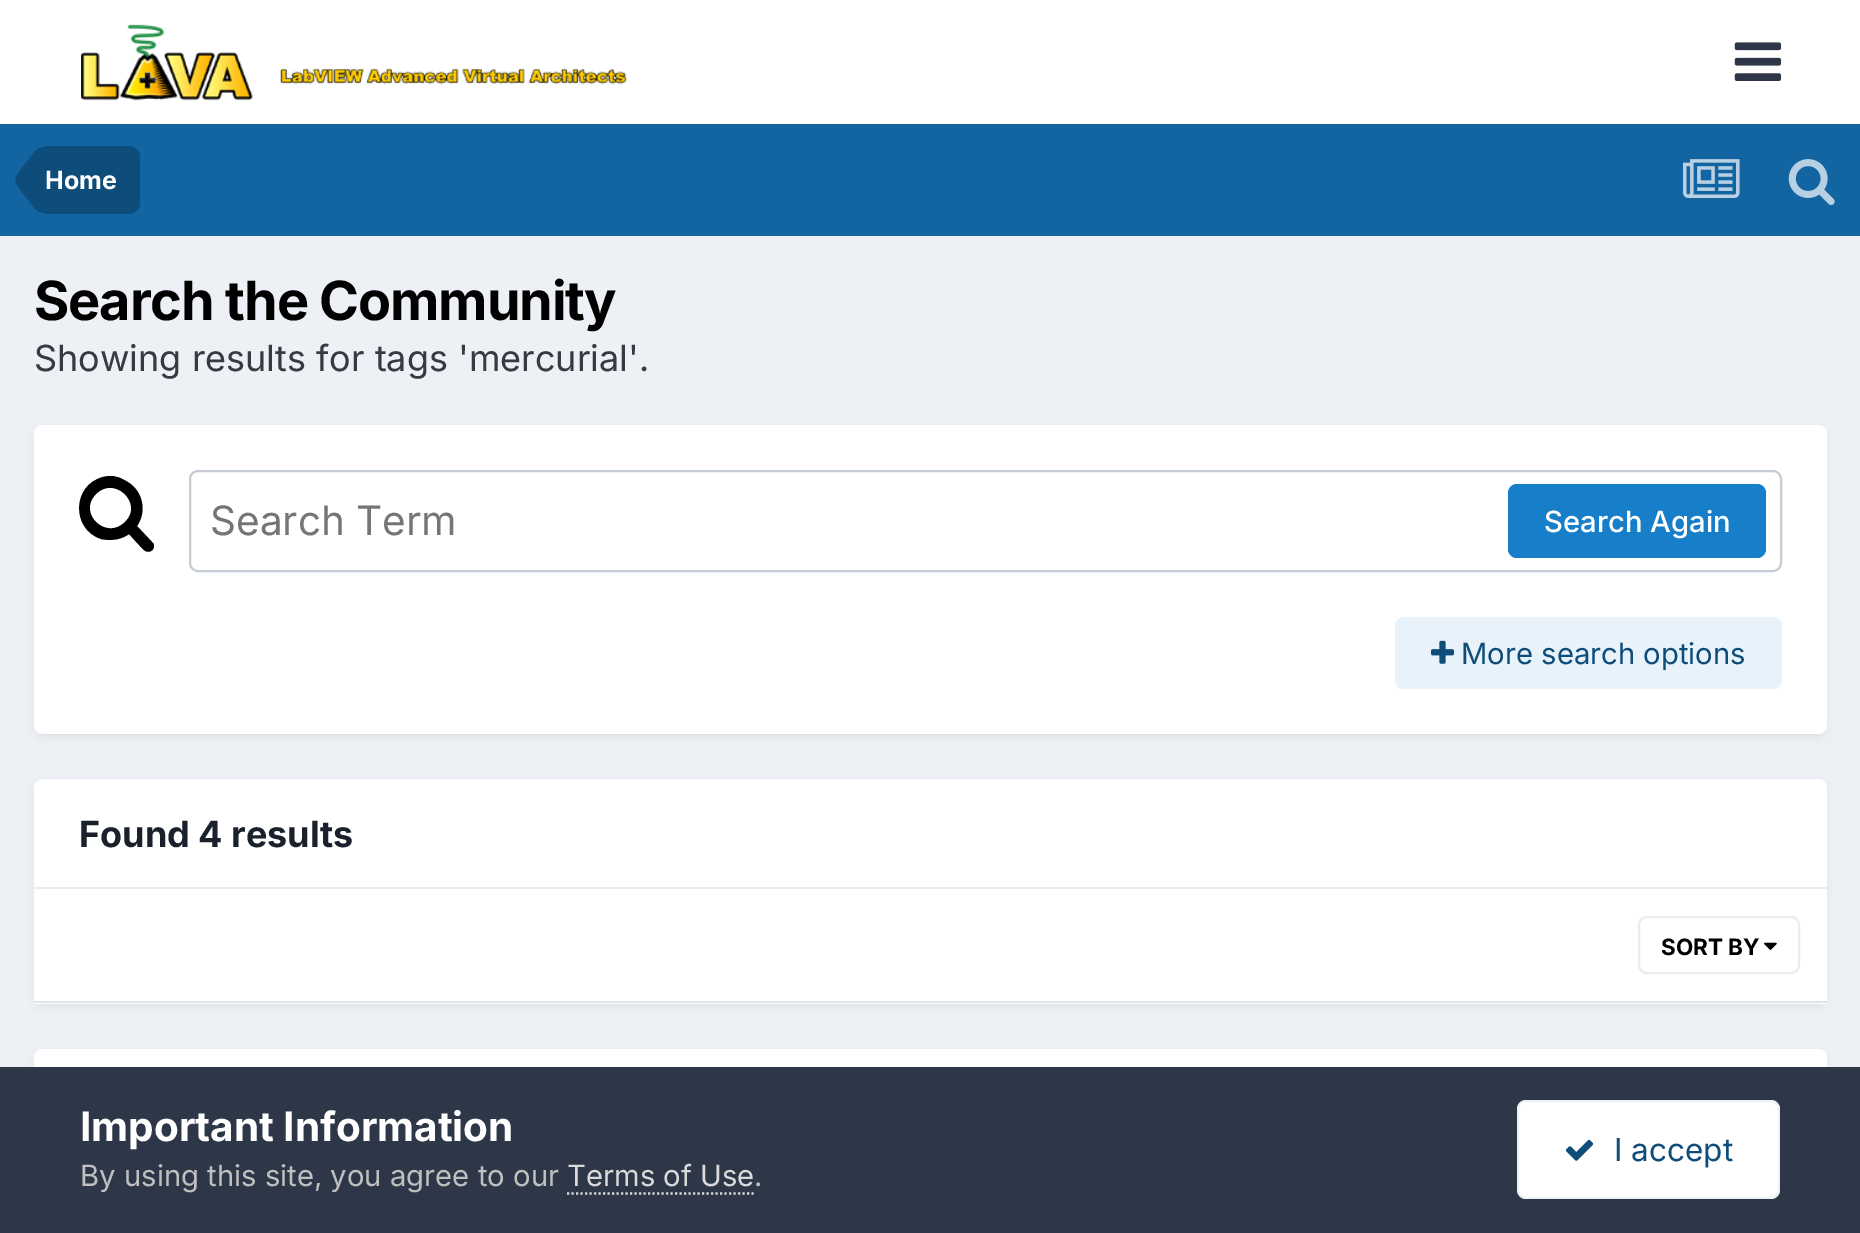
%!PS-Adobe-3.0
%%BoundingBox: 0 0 1860 1233
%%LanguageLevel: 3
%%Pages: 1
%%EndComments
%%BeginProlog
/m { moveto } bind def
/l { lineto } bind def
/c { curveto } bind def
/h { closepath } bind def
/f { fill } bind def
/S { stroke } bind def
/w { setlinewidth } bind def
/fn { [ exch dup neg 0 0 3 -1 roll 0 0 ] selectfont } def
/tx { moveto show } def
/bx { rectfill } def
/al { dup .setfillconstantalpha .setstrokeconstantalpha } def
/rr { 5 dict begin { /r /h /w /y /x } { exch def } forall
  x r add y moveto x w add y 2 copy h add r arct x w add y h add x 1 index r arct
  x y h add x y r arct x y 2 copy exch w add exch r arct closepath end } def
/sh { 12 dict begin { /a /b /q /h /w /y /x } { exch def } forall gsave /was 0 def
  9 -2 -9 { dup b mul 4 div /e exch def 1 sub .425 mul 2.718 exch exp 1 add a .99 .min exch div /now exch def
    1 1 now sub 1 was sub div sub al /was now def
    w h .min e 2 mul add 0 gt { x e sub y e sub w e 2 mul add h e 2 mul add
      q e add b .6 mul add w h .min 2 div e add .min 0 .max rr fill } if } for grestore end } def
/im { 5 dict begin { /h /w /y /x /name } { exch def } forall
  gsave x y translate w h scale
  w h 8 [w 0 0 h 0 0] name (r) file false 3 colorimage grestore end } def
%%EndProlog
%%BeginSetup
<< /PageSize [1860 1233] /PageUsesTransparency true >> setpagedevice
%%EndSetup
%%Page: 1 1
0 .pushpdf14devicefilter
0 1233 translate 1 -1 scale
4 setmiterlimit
0.929 0.941 0.957 setrgbcolor
0 0 1860 1233 bx
1 setgray
0 0 1860 124 bx
(image0.raw) 81 24 546 77 im
(image1.raw) 1734 42 48 39 im
0.071 0.396 0.631 setrgbcolor
0 124 1860 112 bx
0.055 0.298 0.475 setrgbcolor
45 146 m 129 146 l 135 146 140 151 140 157 c 140 203 l 140 209 135 214 129 214 c 45 214 l h f
45 180 m 45 213 l 40 213 35.5 210.5 32 205 c 21.5 191.5 l 16 183.5 l 15.5 182 15.5 181 15.5 180 c h f
45 180 m 15.5 180 l 15.5 179 15.5 178 16 176.5 c 21.5 168.5 l 32 155 l 35.5 149.5 40 147 45 147 c h f
/Inter-Bold 25 fn
1 setgray
(Home) 45 189 tx
(image2.raw) 1683 159 57 39 im
(image3.raw) 1788 159 47 46 im
/Inter-Bold 54 fn
0 setgray
34 320 m -1.1 0 (Search the Community) ashow
/Inter-Regular 36 fn
0.208 0.235 0.255 setrgbcolor
(Showing results for tags 'mercurial'.) 34 371 tx
0.176 0.216 0.282 setrgbcolor
36 432 1789 304 7 4.5 0.1 sh
1 setgray
34 425 1793 309 9 rr f
0 setgray
125 522 m 144 504 115 475 96 494 c 77 513 106 541 125 522 c h 154 546 m 154 548 153 550 151 551 c 146 554 142 548 139 545 c 129 534 l 121 540 110 541 101 539 c 71 529 72 485 103 477 c 110 475 118 476 124 480 c 142 488 148 510 137 526 c 152 542 l 153 543 154 544 154 546 c h f
0.776 0.8 0.835 setrgbcolor
2 w
190 471 1591 100 8 rr S
/Inter-Regular 40.5 fn
0.459 setgray
(Search Term) 210 535 tx
0.09 0.494 0.788 setrgbcolor
1508 484 258 74 9 rr f
/Inter-Medium 29.25 fn
1 setgray
(Search Again) 1544 532 tx
0.91 0.949 0.98 setrgbcolor
1395 617 387 72 9 rr f
(image4.raw) 1431 640 23 24 im
/Inter-Regular 29.25 fn
0.055 0.298 0.475 setrgbcolor
(More search options) 1461 664 tx
0.176 0.216 0.282 setrgbcolor
36 785 1789 221 7 4.5 0.1 sh
1 setgray
43 779 m 1818 779 l 1823 779 1827 783 1827 788 c 1827 889 l 34 889 l 34 788 l 34 783 38 779 43 779 c h f
0.918 0.925 0.937 setrgbcolor
34 887 1793 2 bx
/Inter-Bold 36 fn
0.102 0.125 0.173 setrgbcolor
(Found 4 results) 79 847 tx
1 setgray
34 889 1793 115 bx
0.882 0.886 0.89 setrgbcolor
34 1001 1793 2 bx
(image5.raw) 1764 942 13 8 im
0.922 0.925 0.925 setrgbcolor
1639 917 160 56 8 rr S
/Inter-Bold 22.5 fn
0 setgray
(SORT BY) 1661 955 tx
0.176 0.216 0.282 setrgbcolor
36 1055 1789 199 7 4.5 0.1 sh
1 setgray
34 1049 1793 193 9 rr f
0.176 0.216 0.282 setrgbcolor
0 1067 1860 166 bx
/Inter-Bold 40.5 fn
1 setgray
(Important Information) 80 1141 tx
/Inter-Regular 29.25 fn
0.753 setgray
(By using this site, you agree to our) 80 1186 tx
0.855 setgray
(Terms of Use) 567 1186 tx
2.2 w
[2.25 2.25] 0 setdash
567 1193.5 m 754 1193.5 l S
0.753 setgray
(.) 754 1186 tx
1 setgray
1517 1100 263 99 9 rr f
0.07 al
0.055 0.298 0.475 setrgbcolor
2 w
[] 0 setdash
1518 1101 261 97 8 rr S
1 al
(image6.raw) 1565 1139 29 22 im
/Inter-Regular 31.5 fn
(I accept) 1614 1161 tx
.poppdf14devicefilter showpage
%%EOF
